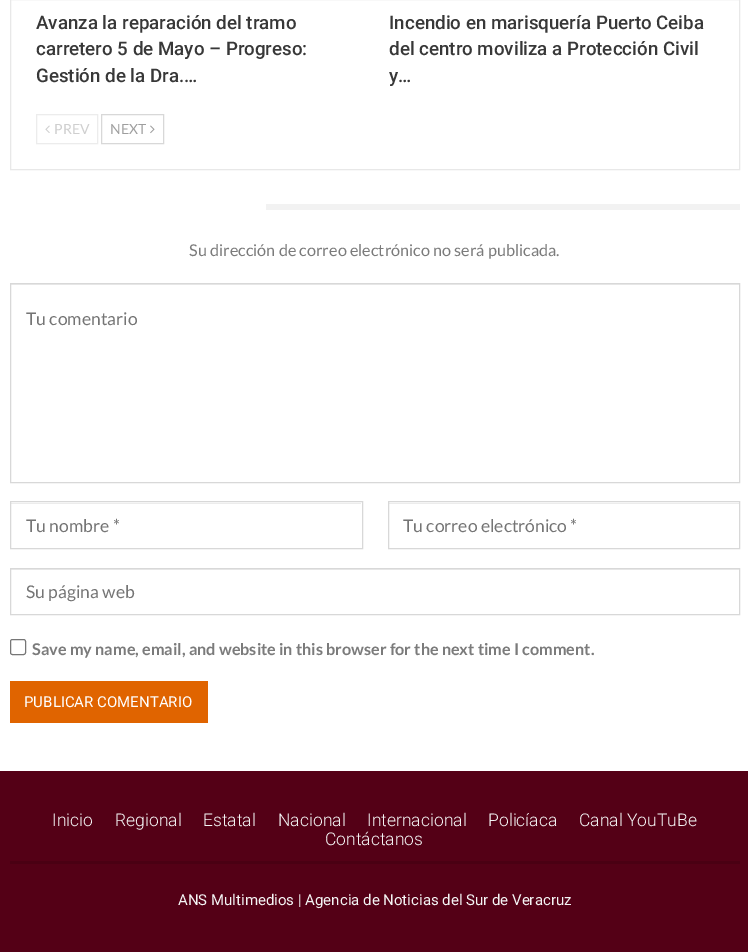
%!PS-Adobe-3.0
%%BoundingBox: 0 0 748 952
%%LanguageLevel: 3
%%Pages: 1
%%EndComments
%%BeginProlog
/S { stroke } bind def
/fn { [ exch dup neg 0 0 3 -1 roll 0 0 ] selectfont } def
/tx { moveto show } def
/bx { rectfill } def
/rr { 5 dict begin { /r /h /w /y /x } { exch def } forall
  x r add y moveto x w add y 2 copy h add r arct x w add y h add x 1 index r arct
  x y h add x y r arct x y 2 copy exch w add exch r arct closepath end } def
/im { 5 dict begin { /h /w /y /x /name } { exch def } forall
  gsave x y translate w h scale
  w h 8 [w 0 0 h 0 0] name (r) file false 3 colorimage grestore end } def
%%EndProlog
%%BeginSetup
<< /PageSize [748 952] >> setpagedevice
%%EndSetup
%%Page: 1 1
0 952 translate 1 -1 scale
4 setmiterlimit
1 setgray
0 0 748 952 bx
0.91 setgray
10.5 -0.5 729 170 rectstroke
/Roboto-Medium 18.75 fn
0.22 setgray
(Avanza la reparación del tramo) 36 29 tx
(carretero 5 de Mayo – Progreso:) 36 55 tx
(Gestión de la Dra.…) 36 82 tx
(Incendio en marisquería Puerto Ceiba) 389 29 tx
(del centro moviliza a Protección Civil) 389 55 tx
(y…) 389 82 tx
0.925 setgray
36.5 114.5 61 29 rectstroke
(image0.raw) 45 125 5 8 im
/Lato-Regular 14 fn
0.812 setgray
(PREV) 54 134 tx
0.847 setgray
101.5 114.5 62 29 rectstroke
0.62 setgray
(NEXT) 110 134 tx
(image1.raw) 150 125 5 9 im
0.949 setgray
266 204 474 6 bx
/Lato-Regular 16.25 fn
0.482 setgray
(Su dirección de correo electrónico no será publicada.) 189 256 tx
0.925 setgray
11 284 728 1 bx
0.847 setgray
10.5 283.5 729 199 rectstroke
/Lato-Regular 17.5 fn
0.459 setgray
(Tu comentario) 26 325 tx
0.925 setgray
11 503 350 1 bx
0.847 setgray
10.5 501.5 352 47 rectstroke
0.459 setgray
(Tu nombre *) 26 532 tx
0.925 setgray
389 503 350 1 bx
0.847 setgray
388.5 501.5 351 47 rectstroke
0.459 setgray
(Tu correo electrónico *) 403 532 tx
0.925 setgray
11 569 728 1 bx
0.847 setgray
10.5 568.5 729 46 rectstroke
0.459 setgray
(Su página web) 26 598 tx
0.463 setgray
10.5 639.5 15 15 2 rr S
/Lato-Bold 16.25 fn
0.482 setgray
(Save my name, email, and website in this browser for the next time I comment.) 32 655 tx
0.878 0.392 0 setrgbcolor
10 681 198 42 bx
/Roboto-Regular 15 fn
1 setgray
(PUBLICAR COMENTARIO) 24 707 tx
0.329 0 0.086 setrgbcolor
0 771 748 181 bx
0.29 0 0.075 setrgbcolor
10 861 730 3 bx
/Roboto-Light 17.5 fn
0.957 setgray
(Inicio) 52 826 tx
(Regional) 115 826 tx
(Estatal) 203 826 tx
(Nacional) 278 826 tx
(Internacional) 367 826 tx
(Policíaca) 488 826 tx
(Canal YouTuBe) 579 826 tx
(Contáctanos) 325 845 tx
/Roboto-Regular 15 fn
(ANS Multimedios | Agencia de Noticias del Sur de Veracruz) 178 905 tx
showpage
%%EOF
